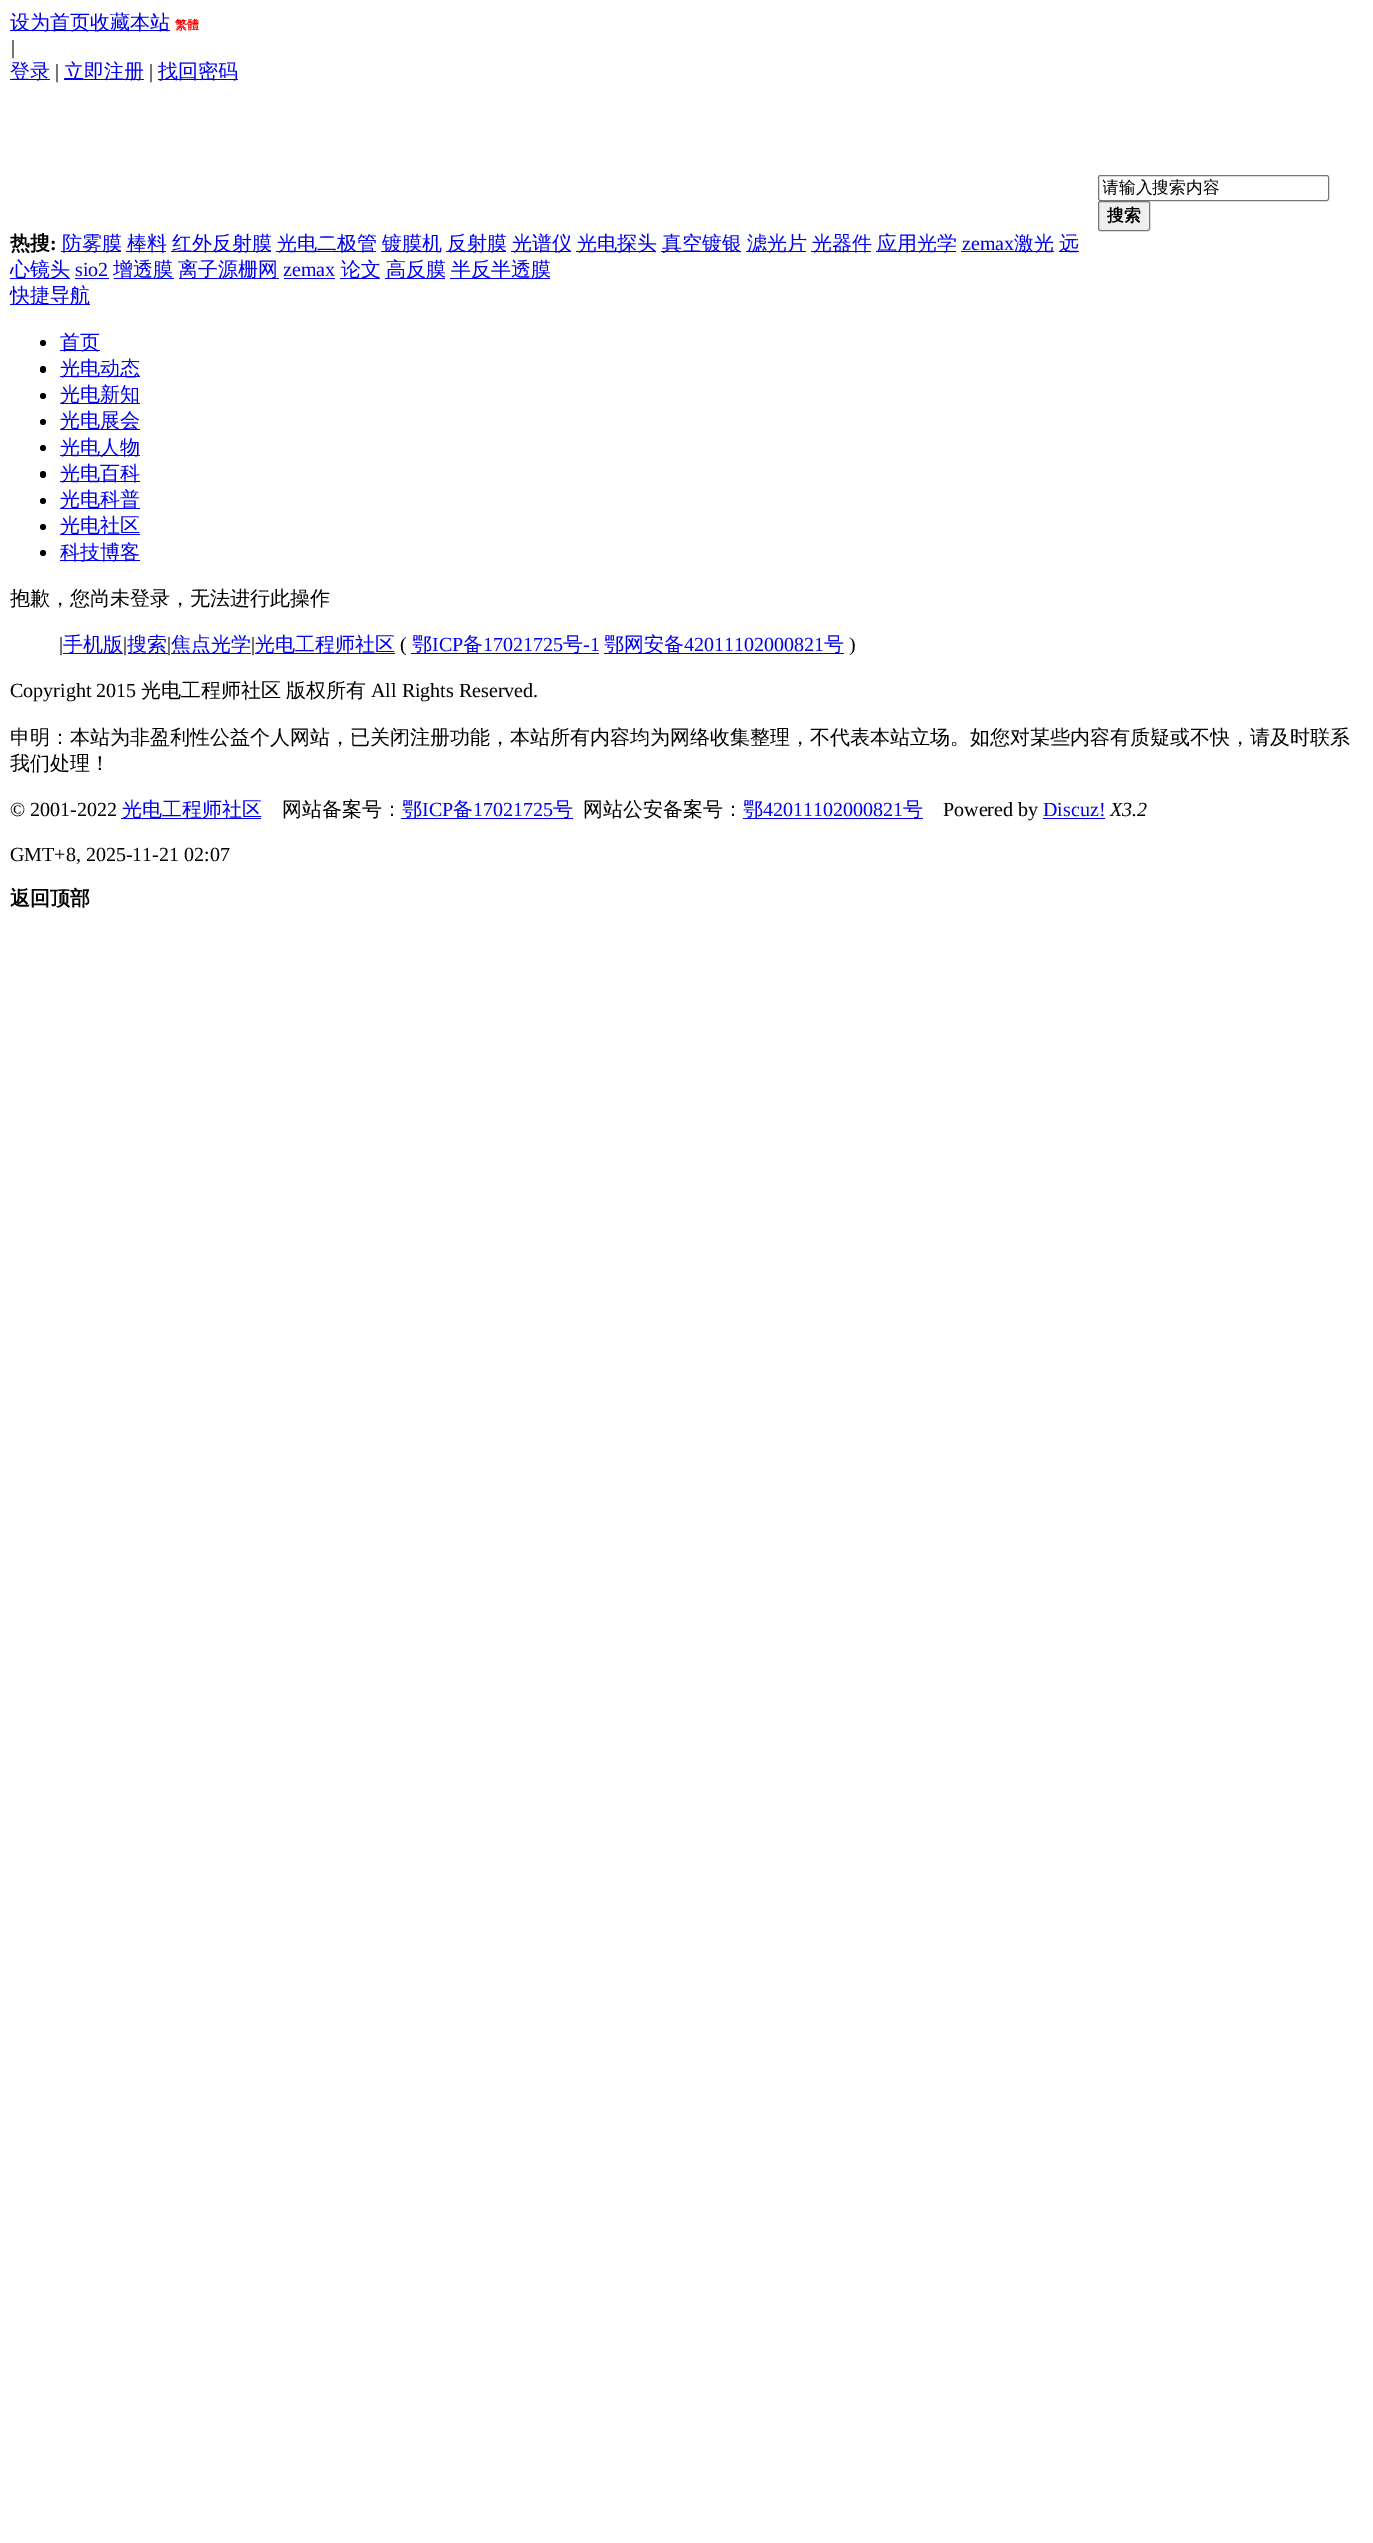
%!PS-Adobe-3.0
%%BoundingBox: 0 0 1373 2543
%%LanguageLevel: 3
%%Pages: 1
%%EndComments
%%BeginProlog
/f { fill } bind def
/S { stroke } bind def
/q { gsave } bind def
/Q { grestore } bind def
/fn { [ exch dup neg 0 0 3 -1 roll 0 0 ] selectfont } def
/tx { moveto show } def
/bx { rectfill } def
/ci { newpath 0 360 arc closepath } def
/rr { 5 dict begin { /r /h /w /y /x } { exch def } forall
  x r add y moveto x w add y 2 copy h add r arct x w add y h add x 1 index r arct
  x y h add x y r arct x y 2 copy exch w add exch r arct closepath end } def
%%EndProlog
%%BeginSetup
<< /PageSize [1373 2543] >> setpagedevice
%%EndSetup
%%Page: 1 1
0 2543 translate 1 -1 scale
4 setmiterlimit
1 setgray
0 0 1373 2543 bx
0 0 0.933 setrgbcolor
10 30 160 1 bx
/WenQuanYiZenHei-Medium 20 fn
(设为首页收藏本站) 10 29 tx
/WenQuanYiZenHei-Bold 12 fn
1 0 0 setrgbcolor
(繁體) 175 29 tx
/LiberationSerif-Italic 20 fn
0 setgray
(|) 10 54 tx
0 0 0.933 setrgbcolor
10 79 40 1 bx
/WenQuanYiZenHei-Medium 20 fn
(登录) 10 78 tx
/LiberationSerif-Regular 20 fn
0 setgray
(|) 55 78 tx
0 0 0.933 setrgbcolor
64 79 80 1 bx
/WenQuanYiZenHei-Medium 20 fn
(立即注册) 64 78 tx
/LiberationSerif-Regular 20 fn
0 setgray
(|) 149 78 tx
0 0 0.933 setrgbcolor
158 79 80 1 bx
/WenQuanYiZenHei-Medium 20 fn
(找回密码) 158 78 tx
0.463 setgray
1098.5 175.5 230 25 2 rr S
q
1103 178 221 21 rectclip
/WenQuanYiZenHei-Medium 16.75 fn
0 setgray
(请输入搜索内容) 1102 193 tx
Q
0.937 setgray
1098.5 201.5 51 29 2 rr q f Q
0.463 setgray
S
/WenQuanYiZenHei-Bold 16.75 fn
0 setgray
(搜索) 1107 221 tx
/WenQuanYiZenHei-Bold 20 fn
(热搜) 10 250 tx
/LiberationSerif-Bold 20 fn
(:) 50 250 tx
0 0 0.933 setrgbcolor
61 251 60 1 bx
/WenQuanYiZenHei-Medium 20 fn
(防雾膜) 62 250 tx
126 251 40 1 bx
(棒料) 127 250 tx
171 251 100 1 bx
(红外反射膜) 172 250 tx
276 251 100 1 bx
(光电二极管) 277 250 tx
381 251 60 1 bx
(镀膜机) 382 250 tx
446 251 60 1 bx
(反射膜) 447 250 tx
511 251 60 1 bx
(光谱仪) 512 250 tx
576 251 80 1 bx
(光电探头) 577 250 tx
661 251 80 1 bx
(真空镀银) 662 250 tx
746 251 60 1 bx
(滤光片) 747 250 tx
811 251 60 1 bx
(光器件) 812 250 tx
876 251 80 1 bx
(应用光学) 877 250 tx
/LiberationSerif-Regular 20 fn
(zemax) 962 250 tx
961 251 93 1 bx
/WenQuanYiZenHei-Medium 20 fn
(激光) 1014 250 tx
1059 251 20 1 bx
(远) 1059 250 tx
10 278 60 1 bx
(心镜头) 10 276 tx
/LiberationSerif-Regular 20 fn
(sio2) 75 276 tx
75 278 34 1 bx
114 278 60 1 bx
/WenQuanYiZenHei-Medium 20 fn
(增透膜) 113 276 tx
179 278 100 1 bx
(离子源栅网) 178 276 tx
/LiberationSerif-Regular 20 fn
(zemax) 283 276 tx
284 278 51 1 bx
340 278 40 1 bx
/WenQuanYiZenHei-Medium 20 fn
(论文) 341 276 tx
385 278 60 1 bx
(高反膜) 386 276 tx
450 278 100 1 bx
(半反半透膜) 451 276 tx
10 304 80 1 bx
(快捷导航) 10 302 tx
0 setgray
43 343 3 ci f
0 0 0.933 setrgbcolor
60 350 40 1 bx
(首页) 60 349 tx
0 setgray
40 366 6 7 3 rr f
0 0 0.933 setrgbcolor
60 376 80 1 bx
(光电动态) 60 375 tx
0 setgray
43 396 3 ci f
0 0 0.933 setrgbcolor
60 403 80 1 bx
(光电新知) 60 401 tx
0 setgray
43 422 3 ci f
0 0 0.933 setrgbcolor
60 429 80 1 bx
(光电展会) 60 427 tx
0 setgray
43 448 3 ci f
0 0 0.933 setrgbcolor
60 455 80 1 bx
(光电人物) 60 454 tx
0 setgray
40 471 6 7 3 rr f
0 0 0.933 setrgbcolor
60 481 80 1 bx
(光电百科) 60 480 tx
0 setgray
43 501 3 ci f
0 0 0.933 setrgbcolor
60 508 80 1 bx
(光电科普) 60 506 tx
0 setgray
43 527 3 ci f
0 0 0.933 setrgbcolor
60 534 80 1 bx
(光电社区) 60 532 tx
0 setgray
43 553 3 ci f
0 0 0.933 setrgbcolor
60 560 80 1 bx
(科技博客) 60 559 tx
0 setgray
(抱歉，您尚未登录，无法进行此操作) 10 605 tx
/LiberationSerif-Regular 20 fn
(|) 59 651 tx
0 0 0.933 setrgbcolor
63 653 60 1 bx
/WenQuanYiZenHei-Medium 20 fn
(手机版) 63 651 tx
/LiberationSerif-Regular 20 fn
0 setgray
(|) 123 651 tx
0 0 0.933 setrgbcolor
128 653 40 1 bx
/WenQuanYiZenHei-Medium 20 fn
(搜索) 127 651 tx
/LiberationSerif-Regular 20 fn
0 setgray
(|) 167 651 tx
0 0 0.933 setrgbcolor
171 653 80 1 bx
/WenQuanYiZenHei-Medium 20 fn
(焦点光学) 171 651 tx
/LiberationSerif-Regular 20 fn
0 setgray
(|) 251 651 tx
0 0 0.933 setrgbcolor
255 653 140 1 bx
/WenQuanYiZenHei-Medium 20 fn
(光电工程师社区) 255 651 tx
/LiberationSerif-Regular 20 fn
0 setgray
(\() 400 651 tx
0 0 0.933 setrgbcolor
411 653 188 1 bx
/WenQuanYiZenHei-Medium 20 fn
(鄂) 412 651 tx
/LiberationSerif-Regular 20 fn
(ICP) 432 651 tx
/WenQuanYiZenHei-Medium 20 fn
(备) 463 651 tx
/LiberationSerif-Regular 20 fn
(17021725) 483 651 tx
/WenQuanYiZenHei-Medium 20 fn
(号) 563 651 tx
/LiberationSerif-Regular 20 fn
(-1) 583 651 tx
604 653 240 1 bx
/WenQuanYiZenHei-Medium 20 fn
(鄂网安备) 604 651 tx
/LiberationSerif-Regular 20 fn
(42011102000821) 684 651 tx
/WenQuanYiZenHei-Medium 20 fn
(号) 824 651 tx
/LiberationSerif-Regular 20 fn
0 setgray
(\)) 849 651 tx
(Copyright 2015) 10 697 tx
/WenQuanYiZenHei-Medium 20 fn
(光电工程师社区) 141 697 tx
(版权所有) 286 697 tx
/LiberationSerif-Regular 20 fn
(All Rights Reserved.) 371 697 tx
/WenQuanYiZenHei-Medium 20 fn
(申明：本站为非盈利性公益个人网站，已关闭注册功能，本站所有内容均为网络收集整理，不代表本站立场。如您对某些内容有质疑或不快，请及时联系) 10 744 tx
(我们处理！) 10 770 tx
/LiberationSerif-Regular 20 fn
(© 2001-2022) 10 816 tx
0 0 0.933 setrgbcolor
121 818 140 1 bx
/WenQuanYiZenHei-Medium 20 fn
(光电工程师社区) 122 816 tx
0 setgray
(网站备案号：) 282 816 tx
0 0 0.933 setrgbcolor
401 818 172 1 bx
(鄂) 402 816 tx
/LiberationSerif-Regular 20 fn
(ICP) 422 816 tx
/WenQuanYiZenHei-Medium 20 fn
(备) 453 816 tx
/LiberationSerif-Regular 20 fn
(17021725) 473 816 tx
/WenQuanYiZenHei-Medium 20 fn
(号) 553 816 tx
0 setgray
(网站公安备案号：) 583 816 tx
0 0 0.933 setrgbcolor
743 818 180 1 bx
(鄂) 743 816 tx
/LiberationSerif-Regular 20 fn
(42011102000821) 763 816 tx
/WenQuanYiZenHei-Medium 20 fn
(号) 903 816 tx
/LiberationSerif-Regular 20 fn
0 setgray
(Powered by) 943 816 tx
0 0 0.933 setrgbcolor
(Discuz!) 1043 816 tx
1043 818 62 1 bx
/LiberationSerif-Italic 20 fn
0 setgray
(X3.2) 1110 816 tx
/LiberationSerif-Regular 20 fn
(GMT+8, 2025-11-21 02:07) 10 861 tx
/WenQuanYiZenHei-Bold 20 fn
(返回顶部) 10 905 tx
showpage
%%EOF
